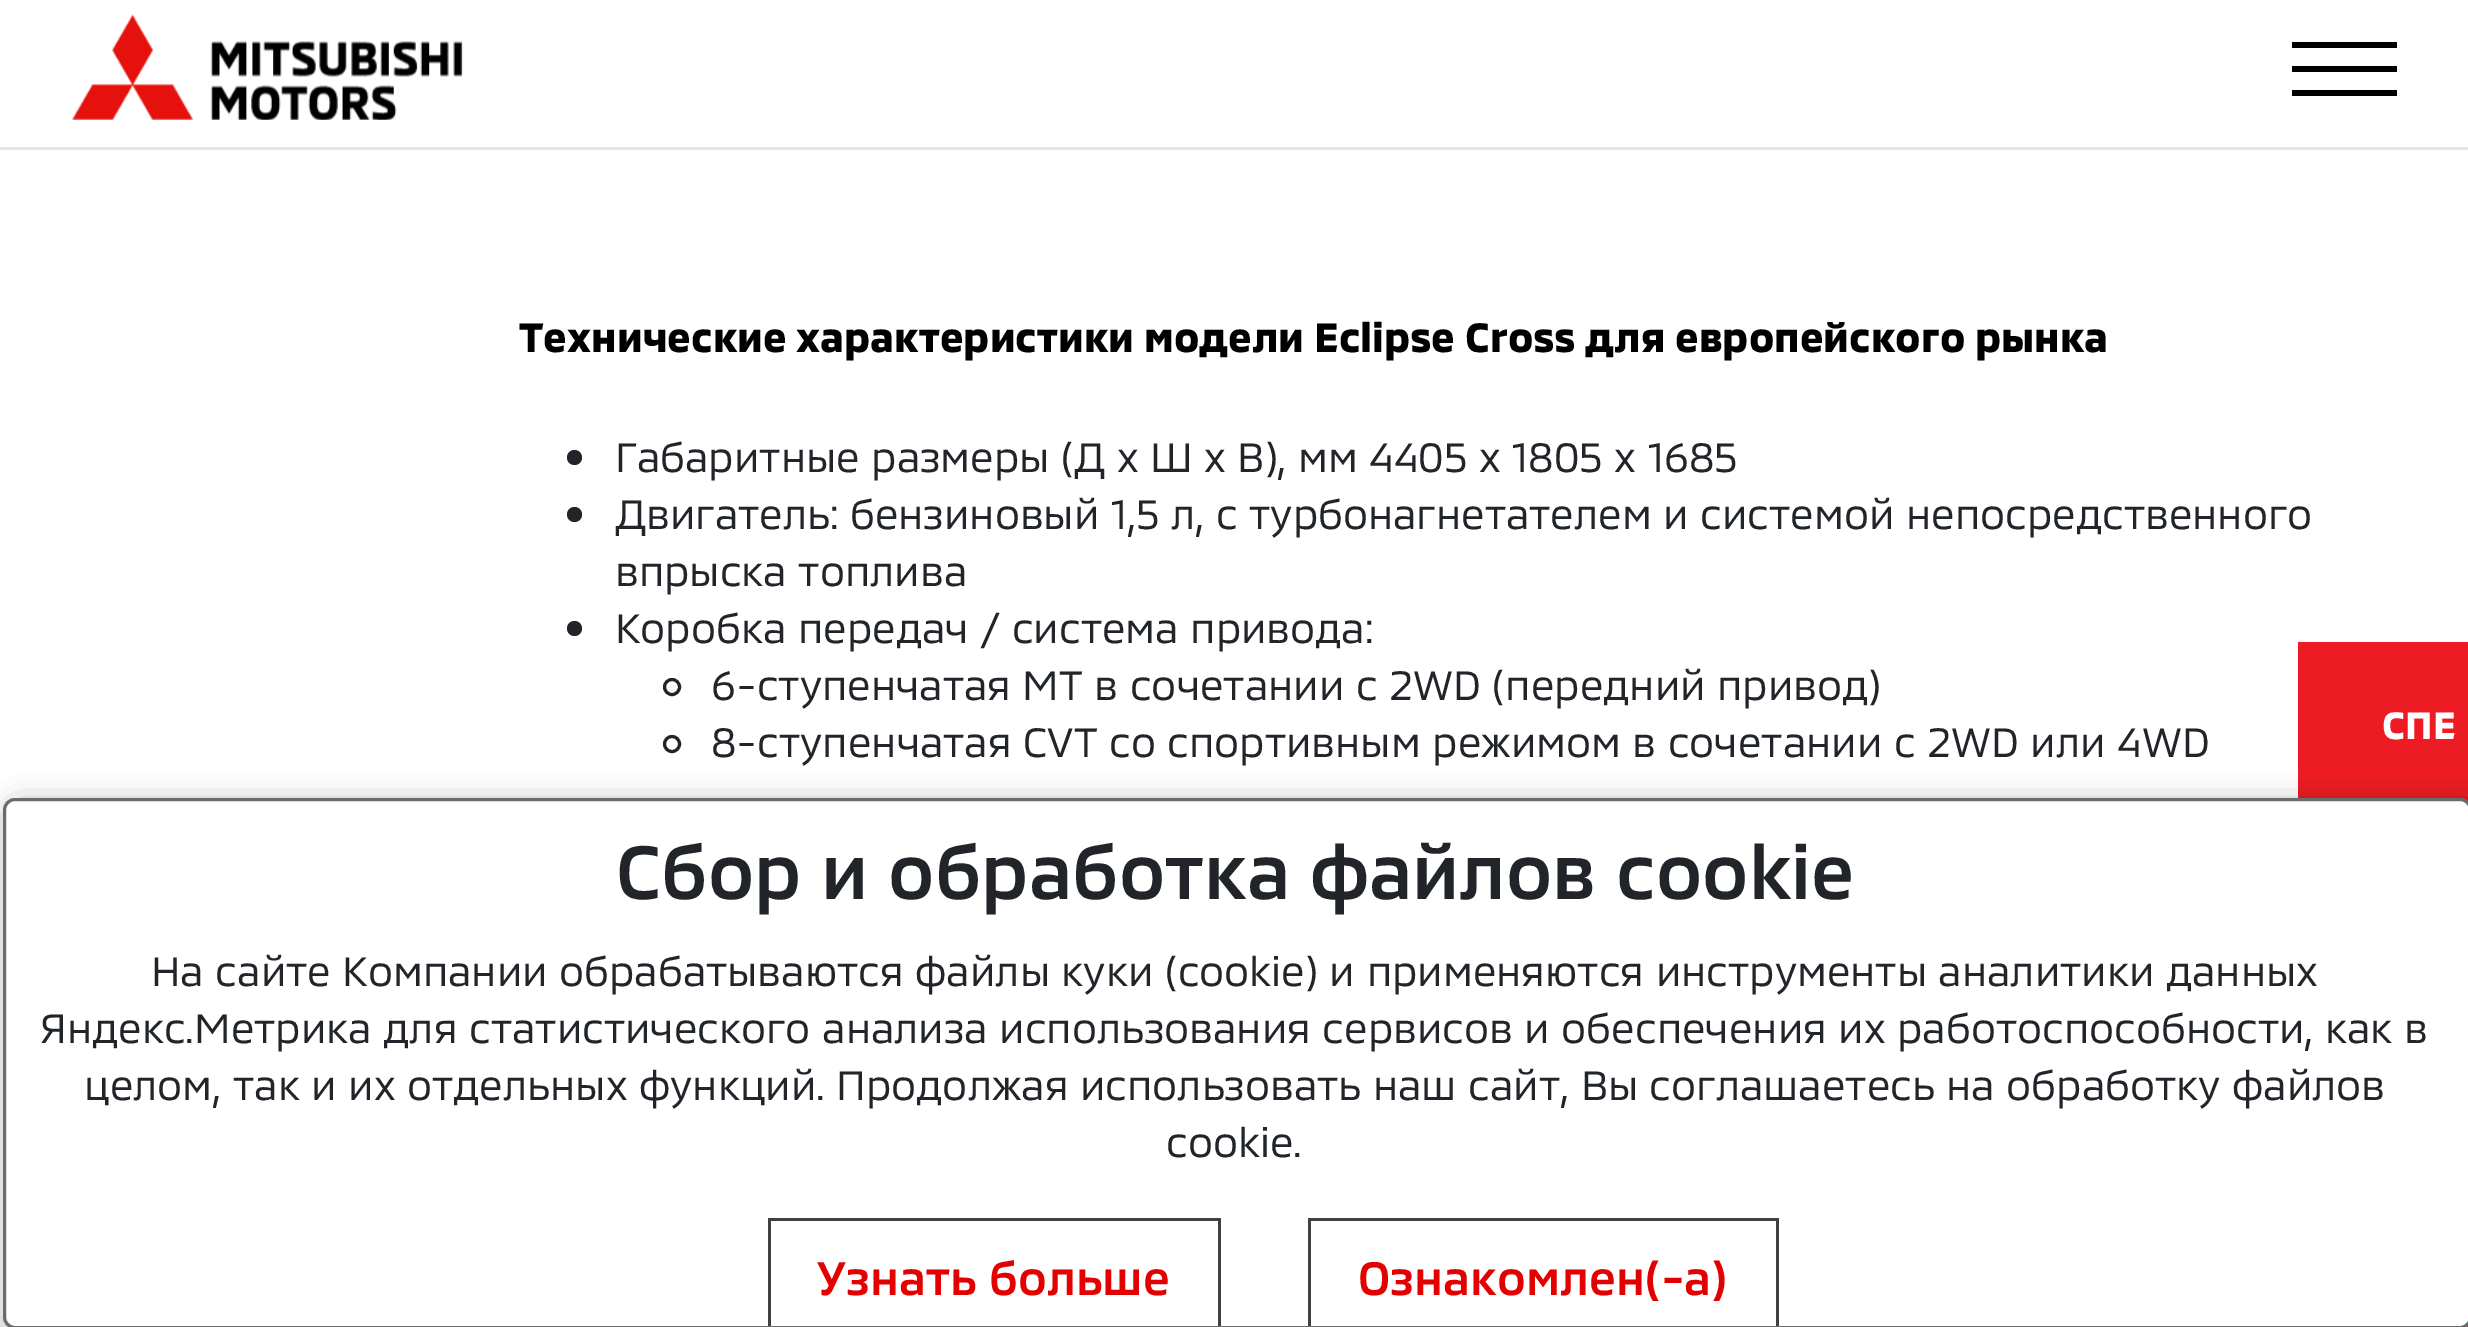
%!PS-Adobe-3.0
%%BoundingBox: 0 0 2468 1327
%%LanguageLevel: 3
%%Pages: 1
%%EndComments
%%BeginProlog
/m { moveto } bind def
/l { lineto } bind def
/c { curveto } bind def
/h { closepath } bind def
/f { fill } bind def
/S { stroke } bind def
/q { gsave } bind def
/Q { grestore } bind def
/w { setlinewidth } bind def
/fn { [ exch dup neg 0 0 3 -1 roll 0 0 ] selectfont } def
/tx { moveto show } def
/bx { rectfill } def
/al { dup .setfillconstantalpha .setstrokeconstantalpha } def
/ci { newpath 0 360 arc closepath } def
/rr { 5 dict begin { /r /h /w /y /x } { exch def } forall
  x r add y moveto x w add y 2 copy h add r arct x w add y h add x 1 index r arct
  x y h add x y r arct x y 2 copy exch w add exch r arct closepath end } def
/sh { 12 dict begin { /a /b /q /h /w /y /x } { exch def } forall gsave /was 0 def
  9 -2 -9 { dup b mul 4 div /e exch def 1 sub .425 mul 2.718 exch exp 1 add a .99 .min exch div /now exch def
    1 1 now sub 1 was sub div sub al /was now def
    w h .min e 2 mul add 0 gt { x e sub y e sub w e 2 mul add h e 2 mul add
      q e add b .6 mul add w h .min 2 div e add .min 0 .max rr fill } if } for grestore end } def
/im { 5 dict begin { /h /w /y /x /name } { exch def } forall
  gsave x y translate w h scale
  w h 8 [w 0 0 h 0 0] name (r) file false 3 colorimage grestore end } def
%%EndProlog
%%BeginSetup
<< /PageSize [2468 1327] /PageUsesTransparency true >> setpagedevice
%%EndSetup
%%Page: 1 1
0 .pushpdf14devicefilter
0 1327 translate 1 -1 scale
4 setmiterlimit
1 setgray
0 0 2468 1327 bx
0.89 0.898 0.902 setrgbcolor
0 147 2468 3 bx
(image0.raw) 72 14 391 106 im
0 setgray
2292 42 105 6 bx
2292 66 105 6 bx
2292 90 105 6 bx
/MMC-Bold 42 fn
(Технические характеристики модели Eclipse Cross для европейского рынка) 519 352 tx
0.129 0.145 0.161 setrgbcolor
574.5 457.5 7.5 ci f
/MMC-Regular 42 fn
(Габаритные размеры \(Д х Ш х В\), мм 4405 x 1805 x 1685) 615 472 tx
574.5 514.5 7.5 ci f
(Двигатель: бензиновый 1,5 л, с турбонагнетателем и системой непосредственного) 615 529 tx
(впрыска топлива) 615 586 tx
574.5 628.5 7.5 ci f
(Коробка передач / система привода:) 615 643 tx
3 w
672 687 7.5 ci S
(6-ступенчатая MT в сочетании с 2WD \(передний привод\)) 711 700 tx
672 744 7.5 ci S
(8-ступенчатая CVT со спортивным режимом в сочетании с 2WD или 4WD) 711 757 tx
0.929 0.11 0.141 setrgbcolor
2298 642 170 160 bx
/MMC-Bold 39 fn
1 setgray
(СПЕ) 2382 739 tx
0.929 0.11 0.141 setrgbcolor
2466 1325 2 2 bx
q
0 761 m 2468 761 l 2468 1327 l 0 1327 l h 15 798 m 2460 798 l 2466.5 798 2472 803.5 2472 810 c 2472 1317 l 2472 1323.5 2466.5 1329 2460 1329 c 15 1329 l 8.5 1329 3 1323.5 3 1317 c 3 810 l 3 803.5 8.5 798 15 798 c h eoclip newpath
0 setgray
9 807 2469 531 12 15 0.4 sh
Q
1 setgray
4.5 799.5 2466 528 10.5 rr q f Q
0.408 0.427 0.443 setrgbcolor
S
/MMC-Medium 77.25 fn
0.129 0.145 0.161 setrgbcolor
(Сбор и обработка файлов cookie) 616 899 tx
/MMC-Regular 42 fn
(На сайте Компании обрабатываются файлы куки \(cookie\) и применяются инструменты аналитики данных) 151 986 tx
(Яндекс.Метрика для статистического анализа использования сервисов и обеспечения их работоспособности, как в) 40 1043 tx
(целом, так и их отдельных функций. Продолжая использовать наш сайт, Вы соглашаетесь на обработку файлов) 84 1100 tx
(cookie.) 1166 1157 tx
0.251 setgray
768 1218 m 768 1326 l 771 1326 l 771 1221 l 1218 1221 l 1218 1326 l 1221 1326 l 1221 1218 l h f
/MMC-Medium 48 fn
0.89 0 0 setrgbcolor
(Узнать больше) 816 1295 tx
0.251 setgray
1308 1218 m 1308 1326 l 1311 1326 l 1311 1221 l 1776 1221 l 1776 1326 l 1779 1326 l 1779 1218 l h f
0.89 0 0 setrgbcolor
(Ознакомлен\(-а\)) 1358 1295 tx
.poppdf14devicefilter showpage
%%EOF
